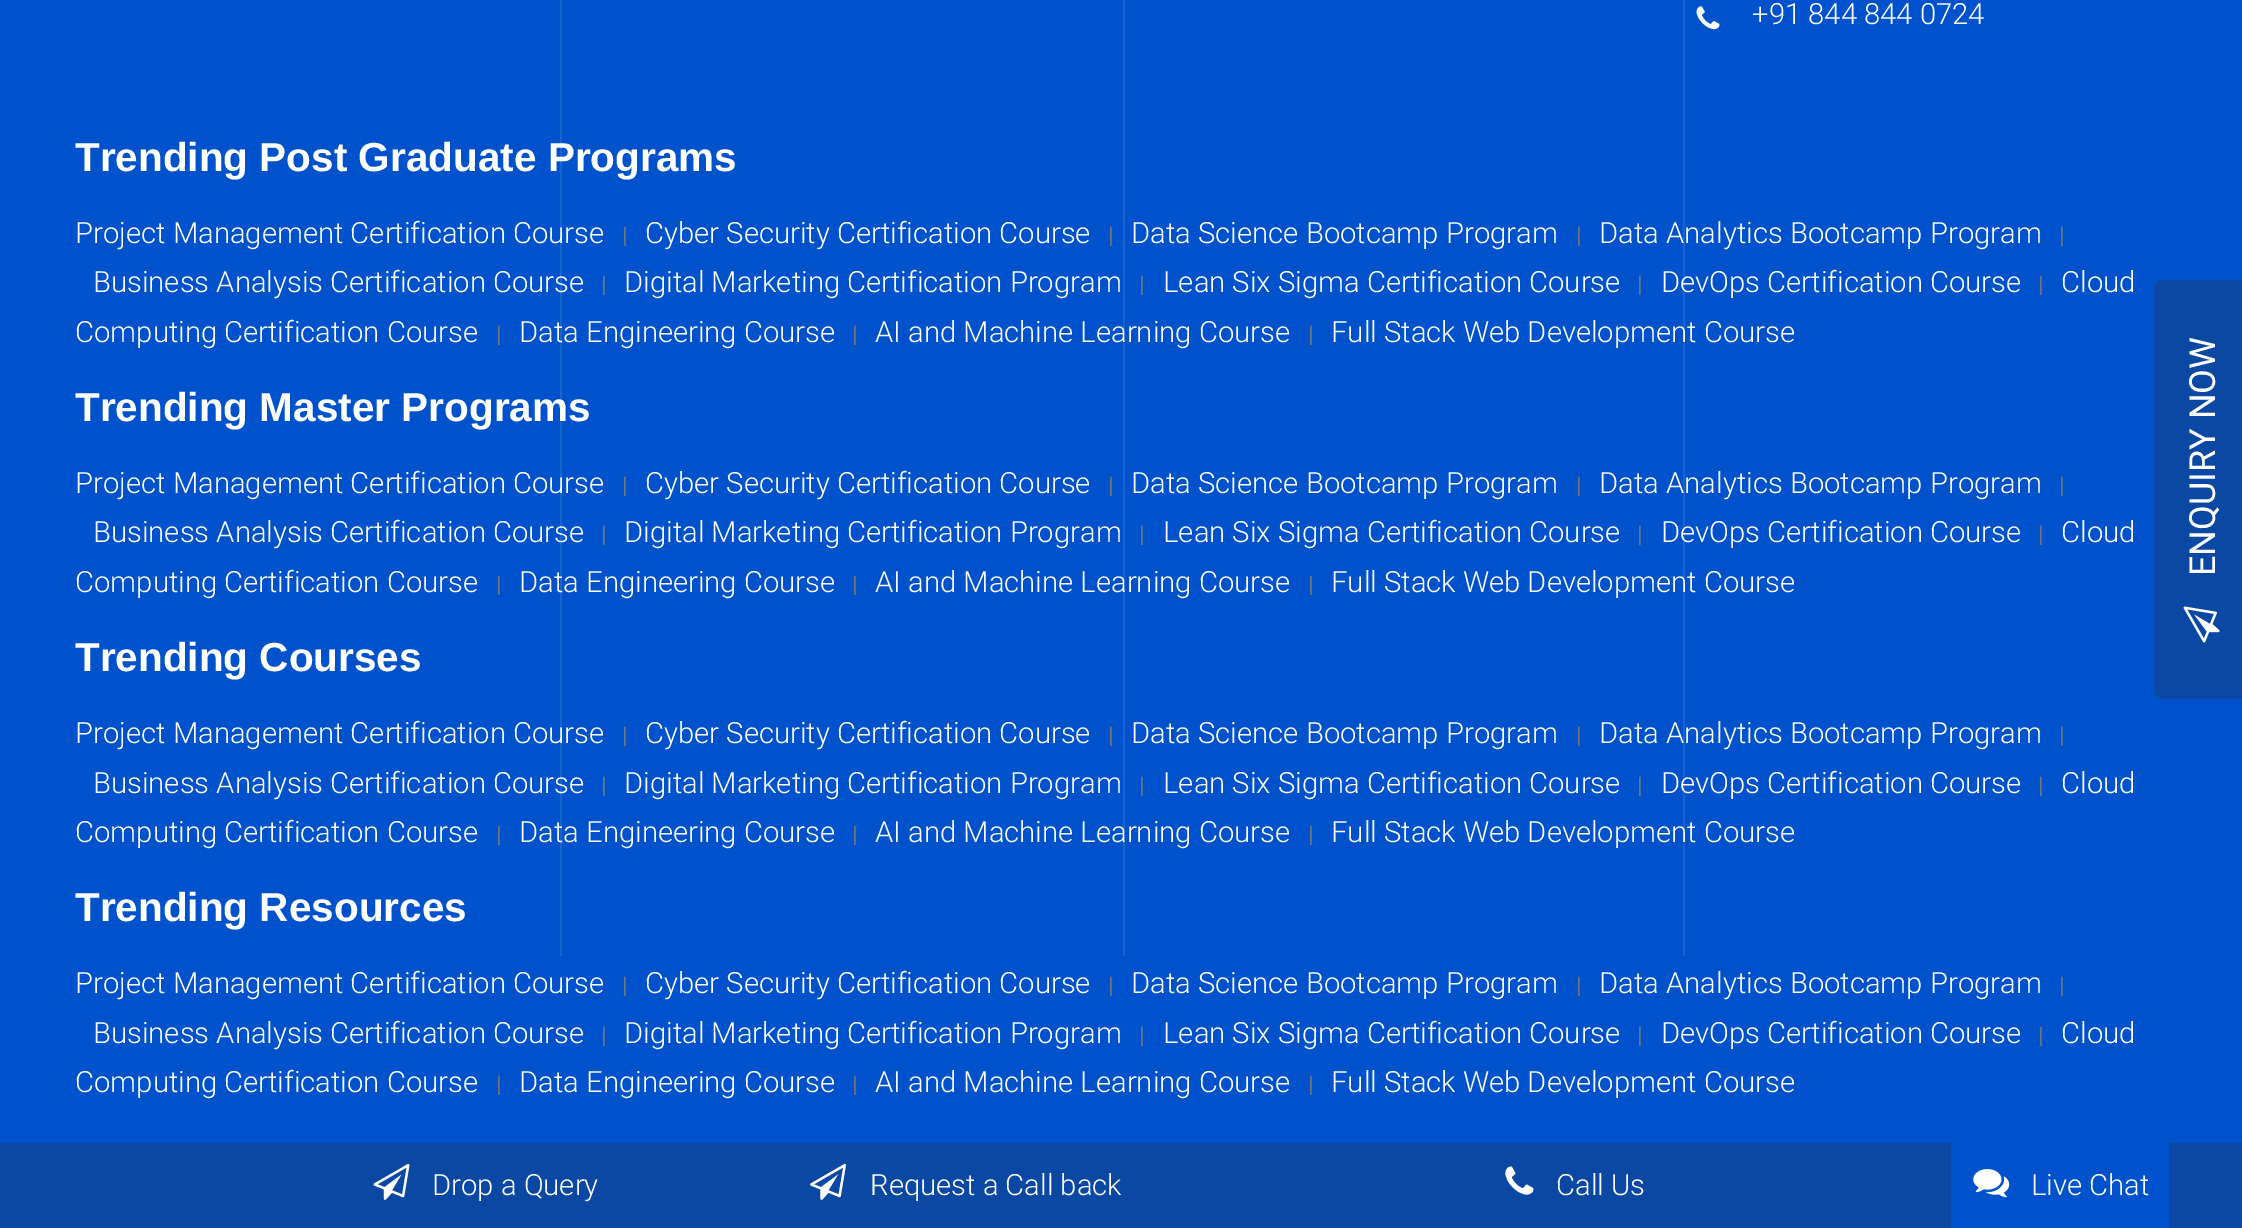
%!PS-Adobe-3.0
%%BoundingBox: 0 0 2242 1228
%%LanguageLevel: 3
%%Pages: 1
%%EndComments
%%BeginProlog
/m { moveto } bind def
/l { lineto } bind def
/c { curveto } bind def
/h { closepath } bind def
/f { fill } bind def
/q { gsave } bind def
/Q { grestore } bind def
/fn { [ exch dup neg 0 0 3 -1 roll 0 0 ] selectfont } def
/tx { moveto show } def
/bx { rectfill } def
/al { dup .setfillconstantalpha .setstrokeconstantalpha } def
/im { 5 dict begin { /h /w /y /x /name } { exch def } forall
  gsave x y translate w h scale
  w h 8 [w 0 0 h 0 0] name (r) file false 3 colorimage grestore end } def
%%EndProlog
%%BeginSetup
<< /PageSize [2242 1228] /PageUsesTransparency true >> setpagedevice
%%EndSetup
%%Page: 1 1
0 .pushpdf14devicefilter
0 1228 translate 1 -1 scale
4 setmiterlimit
0 0.322 0.8 setrgbcolor
0 0 2242 1228 bx
0.1 al
1 setgray
560 0 2 956 bx
1123 0 2 956 bx
1683 0 2 956 bx
1 al
(image0.raw) 1696 6 24 24 im
/Roboto-Light 29.25 fn
(+91 844 844 0724) 1752 24 tx
/LiberationSans-Bold 40.5 fn
(Trending Post Graduate Programs) 75 171 tx
/Roboto-Light 29.25 fn
(Project Management Certification Course) 75 243 tx
/Roboto-Regular 23 fn
0.424 0.459 0.49 setrgbcolor
(|) 622 243 tx
/Roboto-Light 29.25 fn
1 setgray
(Cyber Security Certification Course) 645 243 tx
/Roboto-Regular 23 fn
0.424 0.459 0.49 setrgbcolor
(|) 1108 243 tx
/Roboto-Light 29.25 fn
1 setgray
(Data Science Bootcamp Program) 1131 243 tx
/Roboto-Regular 23 fn
0.424 0.459 0.49 setrgbcolor
(|) 1576 243 tx
/Roboto-Light 29.25 fn
1 setgray
(Data Analytics Bootcamp Program) 1599 243 tx
/Roboto-Regular 23 fn
0.424 0.459 0.49 setrgbcolor
(|) 2059 243 tx
/Roboto-Light 29.25 fn
1 setgray
(Business Analysis Certification Course) 93 292 tx
/Roboto-Regular 23 fn
0.424 0.459 0.49 setrgbcolor
(|) 601 292 tx
/Roboto-Light 29.25 fn
1 setgray
(Digital Marketing Certification Program) 624 292 tx
/Roboto-Regular 23 fn
0.424 0.459 0.49 setrgbcolor
(|) 1139 292 tx
/Roboto-Light 29.25 fn
1 setgray
(Lean Six Sigma Certification Course) 1163 292 tx
/Roboto-Regular 23 fn
0.424 0.459 0.49 setrgbcolor
(|) 1637 292 tx
/Roboto-Light 29.25 fn
1 setgray
(DevOps Certification Course) 1661 292 tx
/Roboto-Regular 23 fn
0.424 0.459 0.49 setrgbcolor
(|) 2038 292 tx
/Roboto-Light 29.25 fn
1 setgray
(Cloud) 2061 292 tx
(Computing Certification Course) 75 342 tx
/Roboto-Regular 23 fn
0.424 0.459 0.49 setrgbcolor
(|) 496 342 tx
/Roboto-Light 29.25 fn
1 setgray
(Data Engineering Course) 519 342 tx
/Roboto-Regular 23 fn
0.424 0.459 0.49 setrgbcolor
(|) 852 342 tx
/Roboto-Light 29.25 fn
1 setgray
(AI and Machine Learning Course) 875 342 tx
/Roboto-Regular 23 fn
0.424 0.459 0.49 setrgbcolor
(|) 1308 342 tx
/Roboto-Light 29.25 fn
1 setgray
(Full Stack Web Development Course) 1331 342 tx
/LiberationSans-Bold 40.5 fn
(Trending Master Programs) 75 421 tx
/Roboto-Light 29.25 fn
(Project Management Certification Course) 75 493 tx
/Roboto-Regular 23 fn
0.424 0.459 0.49 setrgbcolor
(|) 622 493 tx
/Roboto-Light 29.25 fn
1 setgray
(Cyber Security Certification Course) 645 493 tx
/Roboto-Regular 23 fn
0.424 0.459 0.49 setrgbcolor
(|) 1108 493 tx
/Roboto-Light 29.25 fn
1 setgray
(Data Science Bootcamp Program) 1131 493 tx
/Roboto-Regular 23 fn
0.424 0.459 0.49 setrgbcolor
(|) 1576 493 tx
/Roboto-Light 29.25 fn
1 setgray
(Data Analytics Bootcamp Program) 1599 493 tx
/Roboto-Regular 23 fn
0.424 0.459 0.49 setrgbcolor
(|) 2059 493 tx
/Roboto-Light 29.25 fn
1 setgray
(Business Analysis Certification Course) 93 542 tx
/Roboto-Regular 23 fn
0.424 0.459 0.49 setrgbcolor
(|) 601 542 tx
/Roboto-Light 29.25 fn
1 setgray
(Digital Marketing Certification Program) 624 542 tx
/Roboto-Regular 23 fn
0.424 0.459 0.49 setrgbcolor
(|) 1139 542 tx
/Roboto-Light 29.25 fn
1 setgray
(Lean Six Sigma Certification Course) 1163 542 tx
/Roboto-Regular 23 fn
0.424 0.459 0.49 setrgbcolor
(|) 1637 542 tx
/Roboto-Light 29.25 fn
1 setgray
(DevOps Certification Course) 1661 542 tx
/Roboto-Regular 23 fn
0.424 0.459 0.49 setrgbcolor
(|) 2038 542 tx
/Roboto-Light 29.25 fn
1 setgray
(Cloud) 2061 542 tx
(Computing Certification Course) 75 592 tx
/Roboto-Regular 23 fn
0.424 0.459 0.49 setrgbcolor
(|) 496 592 tx
/Roboto-Light 29.25 fn
1 setgray
(Data Engineering Course) 519 592 tx
/Roboto-Regular 23 fn
0.424 0.459 0.49 setrgbcolor
(|) 852 592 tx
/Roboto-Light 29.25 fn
1 setgray
(AI and Machine Learning Course) 875 592 tx
/Roboto-Regular 23 fn
0.424 0.459 0.49 setrgbcolor
(|) 1308 592 tx
/Roboto-Light 29.25 fn
1 setgray
(Full Stack Web Development Course) 1331 592 tx
/LiberationSans-Bold 40.5 fn
(Trending Courses) 75 671 tx
/Roboto-Light 29.25 fn
(Project Management Certification Course) 75 743 tx
/Roboto-Regular 23 fn
0.424 0.459 0.49 setrgbcolor
(|) 622 743 tx
/Roboto-Light 29.25 fn
1 setgray
(Cyber Security Certification Course) 645 743 tx
/Roboto-Regular 23 fn
0.424 0.459 0.49 setrgbcolor
(|) 1108 743 tx
/Roboto-Light 29.25 fn
1 setgray
(Data Science Bootcamp Program) 1131 743 tx
/Roboto-Regular 23 fn
0.424 0.459 0.49 setrgbcolor
(|) 1576 743 tx
/Roboto-Light 29.25 fn
1 setgray
(Data Analytics Bootcamp Program) 1599 743 tx
/Roboto-Regular 23 fn
0.424 0.459 0.49 setrgbcolor
(|) 2059 743 tx
/Roboto-Light 29.25 fn
1 setgray
(Business Analysis Certification Course) 93 793 tx
/Roboto-Regular 23 fn
0.424 0.459 0.49 setrgbcolor
(|) 601 793 tx
/Roboto-Light 29.25 fn
1 setgray
(Digital Marketing Certification Program) 624 793 tx
/Roboto-Regular 23 fn
0.424 0.459 0.49 setrgbcolor
(|) 1139 793 tx
/Roboto-Light 29.25 fn
1 setgray
(Lean Six Sigma Certification Course) 1163 793 tx
/Roboto-Regular 23 fn
0.424 0.459 0.49 setrgbcolor
(|) 1637 793 tx
/Roboto-Light 29.25 fn
1 setgray
(DevOps Certification Course) 1661 793 tx
/Roboto-Regular 23 fn
0.424 0.459 0.49 setrgbcolor
(|) 2038 793 tx
/Roboto-Light 29.25 fn
1 setgray
(Cloud) 2061 793 tx
(Computing Certification Course) 75 842 tx
/Roboto-Regular 23 fn
0.424 0.459 0.49 setrgbcolor
(|) 496 842 tx
/Roboto-Light 29.25 fn
1 setgray
(Data Engineering Course) 519 842 tx
/Roboto-Regular 23 fn
0.424 0.459 0.49 setrgbcolor
(|) 852 842 tx
/Roboto-Light 29.25 fn
1 setgray
(AI and Machine Learning Course) 875 842 tx
/Roboto-Regular 23 fn
0.424 0.459 0.49 setrgbcolor
(|) 1308 842 tx
/Roboto-Light 29.25 fn
1 setgray
(Full Stack Web Development Course) 1331 842 tx
/LiberationSans-Bold 40.5 fn
(Trending Resources) 75 921 tx
/Roboto-Light 29.25 fn
(Project Management Certification Course) 75 993 tx
/Roboto-Regular 23 fn
0.424 0.459 0.49 setrgbcolor
(|) 622 993 tx
/Roboto-Light 29.25 fn
1 setgray
(Cyber Security Certification Course) 645 993 tx
/Roboto-Regular 23 fn
0.424 0.459 0.49 setrgbcolor
(|) 1108 993 tx
/Roboto-Light 29.25 fn
1 setgray
(Data Science Bootcamp Program) 1131 993 tx
/Roboto-Regular 23 fn
0.424 0.459 0.49 setrgbcolor
(|) 1576 993 tx
/Roboto-Light 29.25 fn
1 setgray
(Data Analytics Bootcamp Program) 1599 993 tx
/Roboto-Regular 23 fn
0.424 0.459 0.49 setrgbcolor
(|) 2059 993 tx
/Roboto-Light 29.25 fn
1 setgray
(Business Analysis Certification Course) 93 1043 tx
/Roboto-Regular 23 fn
0.424 0.459 0.49 setrgbcolor
(|) 601 1043 tx
/Roboto-Light 29.25 fn
1 setgray
(Digital Marketing Certification Program) 624 1043 tx
/Roboto-Regular 23 fn
0.424 0.459 0.49 setrgbcolor
(|) 1139 1043 tx
/Roboto-Light 29.25 fn
1 setgray
(Lean Six Sigma Certification Course) 1163 1043 tx
/Roboto-Regular 23 fn
0.424 0.459 0.49 setrgbcolor
(|) 1637 1043 tx
/Roboto-Light 29.25 fn
1 setgray
(DevOps Certification Course) 1661 1043 tx
/Roboto-Regular 23 fn
0.424 0.459 0.49 setrgbcolor
(|) 2038 1043 tx
/Roboto-Light 29.25 fn
1 setgray
(Cloud) 2061 1043 tx
(Computing Certification Course) 75 1092 tx
/Roboto-Regular 23 fn
0.424 0.459 0.49 setrgbcolor
(|) 496 1092 tx
/Roboto-Light 29.25 fn
1 setgray
(Data Engineering Course) 519 1092 tx
/Roboto-Regular 23 fn
0.424 0.459 0.49 setrgbcolor
(|) 852 1092 tx
/Roboto-Light 29.25 fn
1 setgray
(AI and Machine Learning Course) 875 1092 tx
/Roboto-Regular 23 fn
0.424 0.459 0.49 setrgbcolor
(|) 1308 1092 tx
/Roboto-Light 29.25 fn
1 setgray
(Full Stack Web Development Course) 1331 1092 tx
0.043 0.282 0.639 setrgbcolor
2154 690 m 2154 289 l 2154 284 2158 280 2163 280 c 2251 280 l 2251 699 l 2163 699 l 2158 699 2154 695 2154 690 c h f
/Roboto-Regular 36 fn
1 setgray
q 2215 576 translate -90 rotate 0 0 m (ENQUIRY NOW) show Q
(image1.raw) 2183 606 37 37 im
0.043 0.282 0.639 setrgbcolor
0 1143 2242 85 bx
(image2.raw) 373 1163 37 37 im
/Roboto-Light 29.25 fn
1 setgray
(Drop a Query) 432 1195 tx
(image3.raw) 810 1163 36 37 im
(Request a Call back) 870 1195 tx
(image4.raw) 1505 1166 29 29 im
(Call Us) 1556 1195 tx
0 0.322 0.8 setrgbcolor
1951 1143 218 85 bx
(image5.raw) 1973 1169 37 29 im
1 setgray
(Live Chat) 2031 1195 tx
.poppdf14devicefilter showpage
%%EOF
